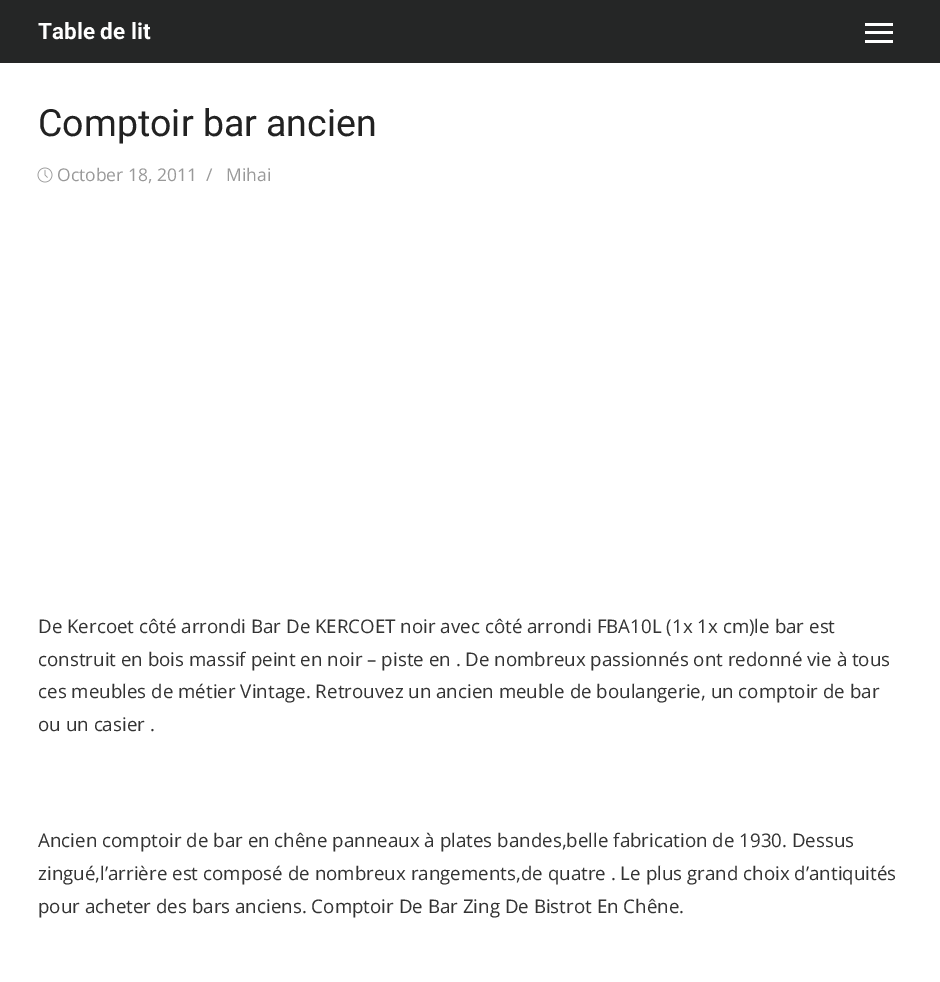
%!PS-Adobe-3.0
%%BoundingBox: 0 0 940 982
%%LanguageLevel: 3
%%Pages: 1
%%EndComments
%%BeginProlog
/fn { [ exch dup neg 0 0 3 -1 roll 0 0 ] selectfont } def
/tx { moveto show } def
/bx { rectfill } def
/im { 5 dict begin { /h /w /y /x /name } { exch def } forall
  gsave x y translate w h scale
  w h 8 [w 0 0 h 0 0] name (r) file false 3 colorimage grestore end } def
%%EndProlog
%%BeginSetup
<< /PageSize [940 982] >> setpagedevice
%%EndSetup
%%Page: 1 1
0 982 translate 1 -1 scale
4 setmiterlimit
1 setgray
0 0 940 982 bx
0.145 0.149 0.149 setrgbcolor
0 0 940 63 bx
/Roboto-Bold 22.5 fn
1 setgray
(Table de lit) 38 39 tx
865 31 28 3 bx
865 23 28 3 bx
865 40 28 3 bx
/Roboto-Regular 37.5 fn
0.133 setgray
(Comptoir bar ancien) 38 136 tx
(image0.raw) 37 167 16 16 im
/OpenSans-Regular 17.5 fn
0.6 setgray
(October 18, 2011) 57 181 tx
(/) 206 181 tx
(Mihai) 226 181 tx
/OpenSans-Regular 18.75 fn
0.2 setgray
(De Kercoet côté arrondi Bar De KERCOET noir avec côté arrondi FBA10L \(1x 1x cm\)le bar est) 38 633 tx
(construit en bois massif peint en noir – piste en . De nombreux passionnés ont redonné vie à tous) 38 666 tx
(ces meubles de métier Vintage. Retrouvez un ancien meuble de boulangerie, un comptoir de bar) 38 698 tx
(ou un casier .) 38 731 tx
(Ancien comptoir de bar en chêne panneaux à plates bandes,belle fabrication de 1930. Dessus) 38 847 tx
(zingué,l’arrière est composé de nombreux rangements,de quatre . Le plus grand choix d’antiquités) 38 880 tx
(pour acheter des bars anciens. Comptoir De Bar Zing De Bistrot En Chêne.) 38 913 tx
showpage
%%EOF
